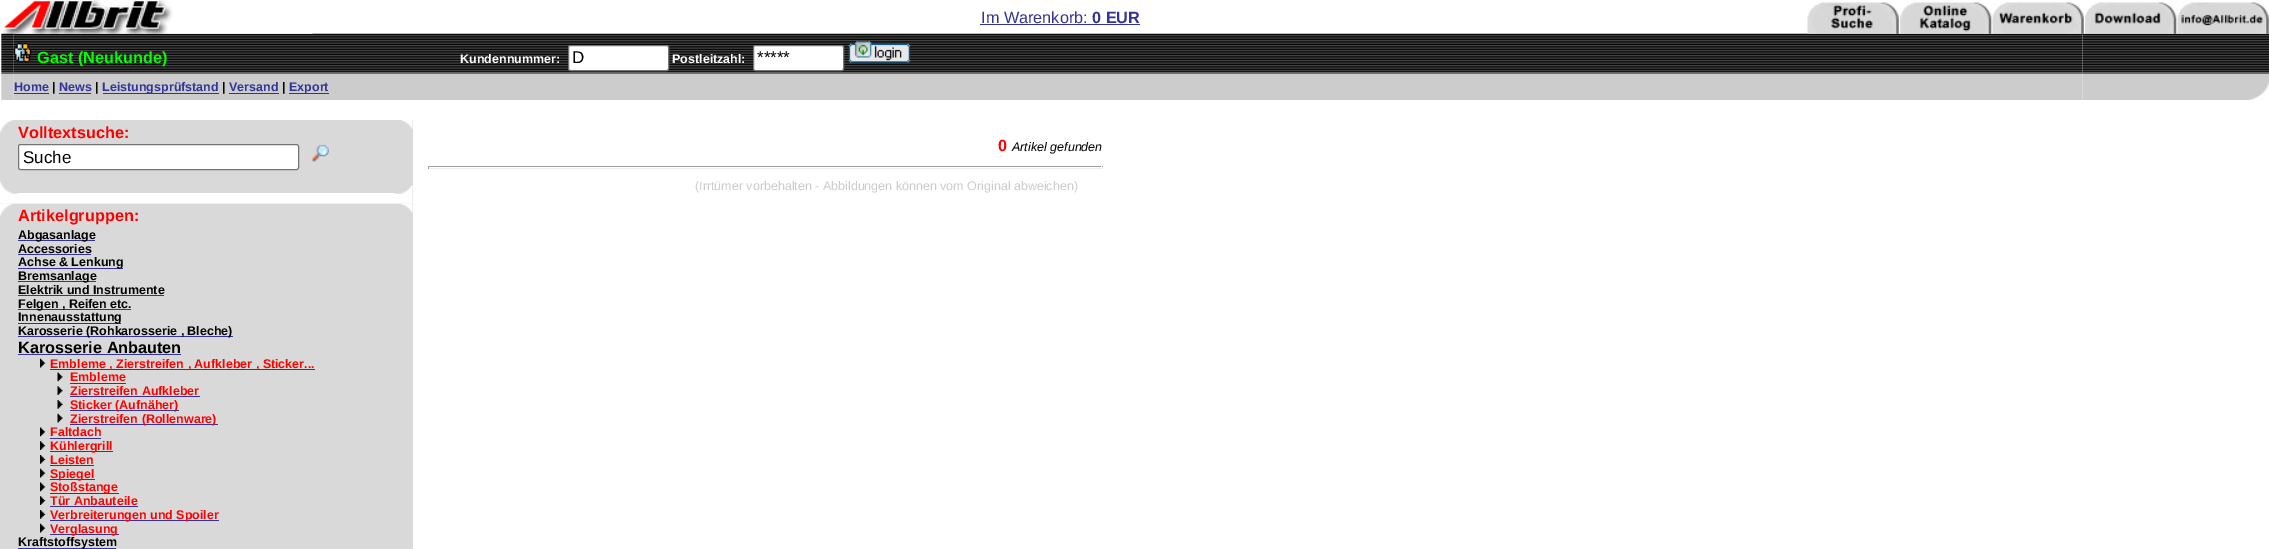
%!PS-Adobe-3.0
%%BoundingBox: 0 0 2269 549
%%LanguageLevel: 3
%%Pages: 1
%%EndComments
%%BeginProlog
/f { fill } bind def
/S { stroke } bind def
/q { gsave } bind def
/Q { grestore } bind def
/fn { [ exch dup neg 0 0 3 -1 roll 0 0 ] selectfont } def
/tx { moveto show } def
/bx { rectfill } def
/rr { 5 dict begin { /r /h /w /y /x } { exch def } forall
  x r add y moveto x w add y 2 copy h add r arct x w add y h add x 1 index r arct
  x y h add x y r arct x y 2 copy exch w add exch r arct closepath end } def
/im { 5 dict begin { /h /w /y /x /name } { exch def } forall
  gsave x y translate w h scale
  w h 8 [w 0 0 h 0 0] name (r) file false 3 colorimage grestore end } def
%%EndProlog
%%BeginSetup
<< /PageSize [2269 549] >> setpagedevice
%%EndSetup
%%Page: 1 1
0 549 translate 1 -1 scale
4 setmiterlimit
1 setgray
0 0 2269 549 bx
(image3.raw) 13 33 447 40 im
(image0.raw) 3 0 310 34 im
/LiberationSans-Regular 16.25 fn
0.2 0.2 0.6 setrgbcolor
(Im Warenkorb:) 981 23 tx
980 24 160 1 bx
/LiberationSans-Bold 16.25 fn
(0 EUR) 1092 23 tx
(image5.raw) 460 33 1623 40 im
(image7.raw) 2082 33 187 40 im
(image1.raw) 1807 2 462 32 im
(image9.raw) 13 72 447 28 im
(image2.raw) 1 33 13 40 im
(image4.raw) 13 42 19 21 im
0 1 0 setrgbcolor
(Gast \(Neukunde\)) 37 63 tx
/LiberationSans-Bold 12.5 fn
1 setgray
(Kundennummer:) 460 63 tx
568.5 45.5 100 25 2 rr q f Q
0.463 setgray
S
/LiberationSans-Regular 17 fn
0 setgray
(D) 572 63 tx
/LiberationSans-Bold 12.5 fn
1 setgray
(Postleitzahl:) 672 63 tx
753.5 45.5 90 25 2 rr q f Q
0.463 setgray
S
/LiberationSans-Regular 17 fn
0 setgray
(*****) 757 63 tx
(image6.raw) 848 41 63 22 im
(image8.raw) 1 72 13 28 im
/LiberationSans-Bold 12.5 fn
0.2 0.2 0.6 setrgbcolor
(Home) 14 91 tx
14 93 35 1 bx
0 setgray
(|) 52 91 tx
0.2 0.2 0.6 setrgbcolor
(News) 59 91 tx
59 93 32 1 bx
0 setgray
(|) 95 91 tx
0.2 0.2 0.6 setrgbcolor
103 93 116 1 bx
(Leistungsprüfstand) 102 91 tx
0 setgray
(|) 222 91 tx
0.2 0.2 0.6 setrgbcolor
(Versand) 229 91 tx
229 93 50 1 bx
0 setgray
(|) 282 91 tx
0.2 0.2 0.6 setrgbcolor
289 93 40 1 bx
(Export) 289 91 tx
(image10.raw) 460 72 1623 28 im
(image11.raw) 2082 72 187 28 im
0.851 setgray
0 120 413 429 bx
(image12.raw) 0 120 13 13 im
(image13.raw) 401 120 12 9 im
/LiberationSans-Bold 16.25 fn
1 0 0 setrgbcolor
(Volltextsuche:) 18 138 tx
1 setgray
18.5 144.5 280 25 2 rr q f Q
0.463 setgray
S
/LiberationSans-Regular 17 fn
0 setgray
(Suche) 23 163 tx
(image14.raw) 311 144 18 18 im
1 setgray
17 193 378 10 bx
0.965 setgray
17 203 1 1 bx
(image15.raw) 0 181 18 23 im
(image16.raw) 395 185 18 19 im
(image17.raw) 0 203 18 14 im
(image18.raw) 395 203 18 10 im
0.937 setgray
18 203 377 1 bx
/LiberationSans-Bold 16.25 fn
1 0 0 setrgbcolor
(Artikelgruppen:) 18 221 tx
0.2 0.2 0.6 setrgbcolor
18 240 77 1 bx
/LiberationSans-Bold 12.5 fn
0 setgray
(Abgasanlage) 18 239 tx
(Accessories) 18 253 tx
0.2 0.2 0.6 setrgbcolor
18 254 73 1 bx
18 268 105 1 bx
0 setgray
(Achse & Lenkung) 18 266 tx
0.2 0.2 0.6 setrgbcolor
18 281 78 1 bx
0 setgray
(Bremsanlage) 18 280 tx
(Elektrik und Instrumente) 18 294 tx
0.2 0.2 0.6 setrgbcolor
18 295 146 1 bx
18 309 113 1 bx
0 setgray
(Felgen , Reifen etc.) 18 308 tx
0.2 0.2 0.6 setrgbcolor
18 323 103 1 bx
0 setgray
(Innenausstattung) 18 321 tx
0.2 0.2 0.6 setrgbcolor
18 336 215 1 bx
0 setgray
(Karosserie \(Rohkarosserie , Bleche\)) 18 335 tx
/LiberationSans-Bold 16.25 fn
(Karosserie Anbauten) 18 353 tx
0.2 0.2 0.6 setrgbcolor
18 354 163 1 bx
(image19.raw) 40 358 6 10 im
50 369 265 1 bx
/LiberationSans-Bold 12.5 fn
1 0 0 setrgbcolor
(Embleme , Zierstreifen , Aufkleber , Sticker...) 50 368 tx
(image20.raw) 57 372 6 10 im
(Embleme) 70 381 tx
0.2 0.2 0.6 setrgbcolor
70 383 56 1 bx
(image21.raw) 57 386 6 9 im
1 0 0 setrgbcolor
(Zierstreifen Aufkleber) 70 395 tx
0.2 0.2 0.6 setrgbcolor
70 396 130 1 bx
(image22.raw) 57 400 6 9 im
70 410 109 1 bx
1 0 0 setrgbcolor
(Sticker \(Aufnäher\)) 70 409 tx
(image23.raw) 57 413 6 10 im
0.2 0.2 0.6 setrgbcolor
70 424 148 1 bx
1 0 0 setrgbcolor
(Zierstreifen \(Rollenware\)) 70 423 tx
(image24.raw) 40 427 6 10 im
(Faltdach) 50 436 tx
0.2 0.2 0.6 setrgbcolor
50 438 51 1 bx
(image25.raw) 40 441 6 9 im
50 451 63 1 bx
1 0 0 setrgbcolor
(Kühlergrill) 50 450 tx
(image26.raw) 40 455 6 9 im
(Leisten) 50 464 tx
0.2 0.2 0.6 setrgbcolor
50 465 44 1 bx
(image19.raw) 40 468 6 10 im
50 479 45 1 bx
1 0 0 setrgbcolor
(Spiegel) 50 478 tx
(image24.raw) 40 482 6 10 im
0.2 0.2 0.6 setrgbcolor
50 493 69 1 bx
1 0 0 setrgbcolor
(Stoßstange) 50 491 tx
(image25.raw) 40 496 6 9 im
(Tür Anbauteile) 50 505 tx
0.2 0.2 0.6 setrgbcolor
50 506 88 1 bx
(image26.raw) 40 510 6 9 im
50 520 169 1 bx
1 0 0 setrgbcolor
(Verbreiterungen und Spoiler) 50 519 tx
(image19.raw) 40 523 6 10 im
0.2 0.2 0.6 setrgbcolor
50 534 69 1 bx
1 0 0 setrgbcolor
(Verglasung) 50 533 tx
0.2 0.2 0.6 setrgbcolor
18 548 98 1 bx
0 setgray
(Kraftstoffsystem) 18 546 tx
/LiberationSans-Bold 16.25 fn
1 0 0 setrgbcolor
(0) 998 151 tx
/LiberationSans-Italic 12.5 fn
0 setgray
(Artikel gefunden) 1012 151 tx
0.624 setgray
428 166 675 1 bx
0.933 setgray
1101 166 1 3 bx
428 168 675 1 bx
0.624 setgray
428 166 1 3 bx
/LiberationSans-Regular 12.5 fn
0.8 setgray
(\(Irrtümer vorbehalten - Abbildungen können vom Original abweichen\)) 695 190 tx
showpage
%%EOF
